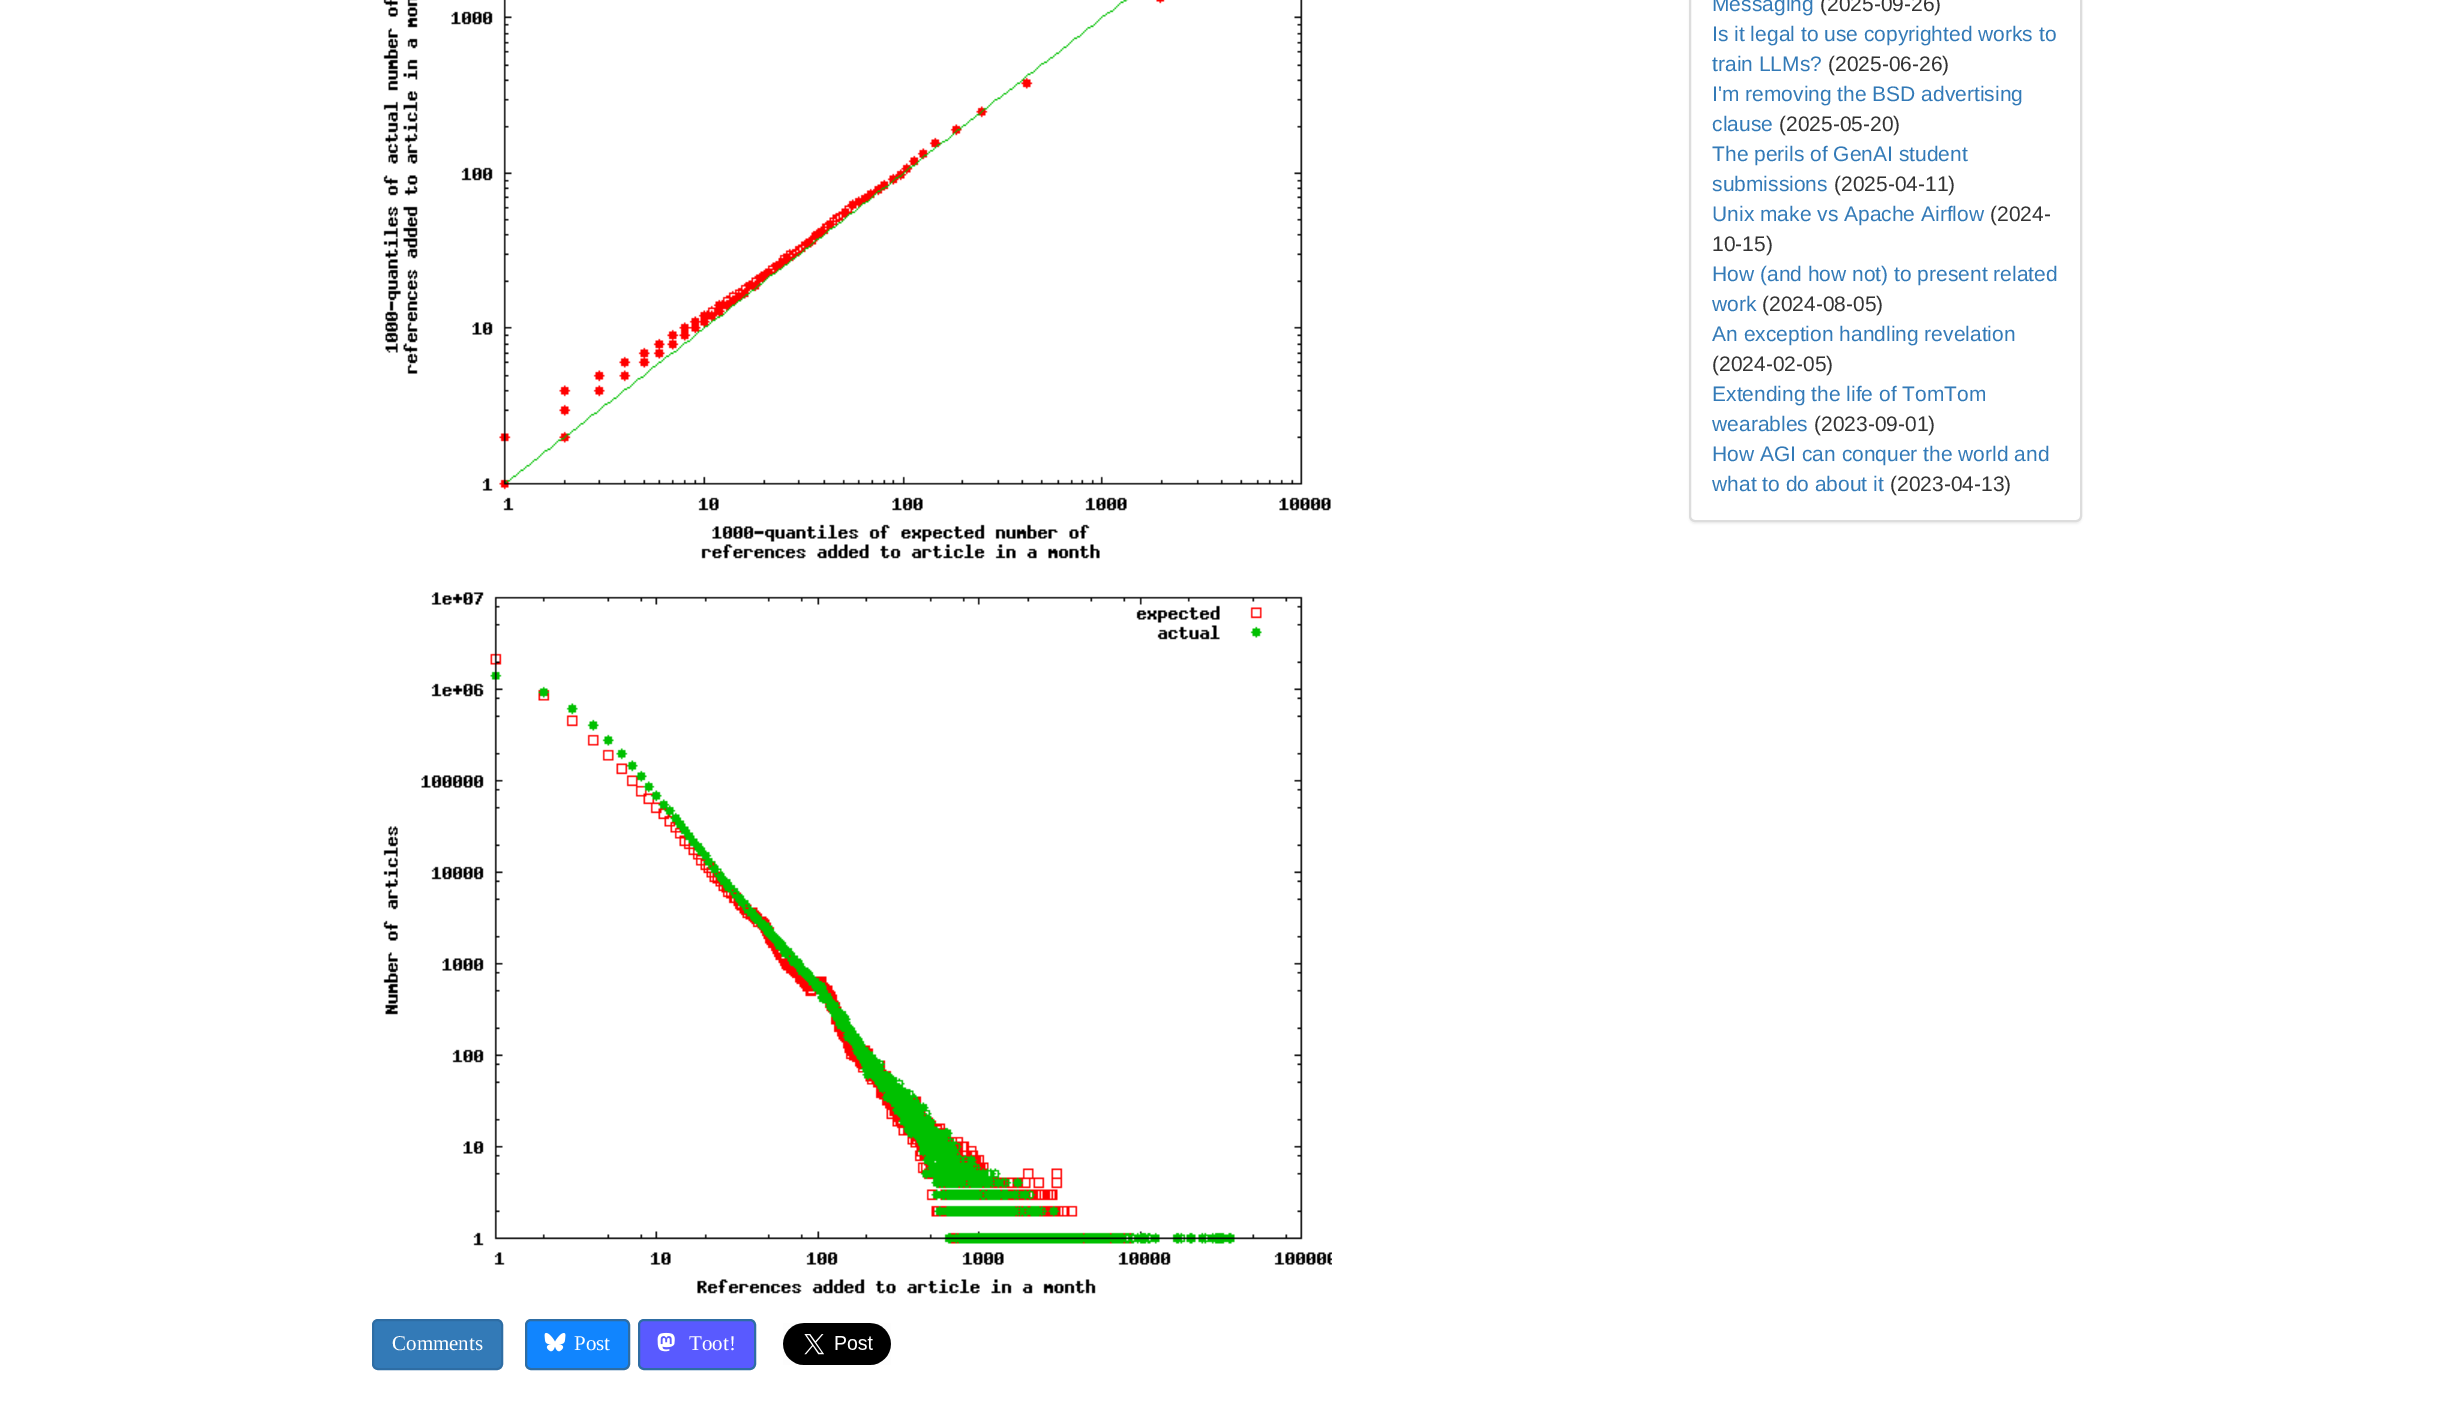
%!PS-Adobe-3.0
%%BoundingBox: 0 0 2454 1415
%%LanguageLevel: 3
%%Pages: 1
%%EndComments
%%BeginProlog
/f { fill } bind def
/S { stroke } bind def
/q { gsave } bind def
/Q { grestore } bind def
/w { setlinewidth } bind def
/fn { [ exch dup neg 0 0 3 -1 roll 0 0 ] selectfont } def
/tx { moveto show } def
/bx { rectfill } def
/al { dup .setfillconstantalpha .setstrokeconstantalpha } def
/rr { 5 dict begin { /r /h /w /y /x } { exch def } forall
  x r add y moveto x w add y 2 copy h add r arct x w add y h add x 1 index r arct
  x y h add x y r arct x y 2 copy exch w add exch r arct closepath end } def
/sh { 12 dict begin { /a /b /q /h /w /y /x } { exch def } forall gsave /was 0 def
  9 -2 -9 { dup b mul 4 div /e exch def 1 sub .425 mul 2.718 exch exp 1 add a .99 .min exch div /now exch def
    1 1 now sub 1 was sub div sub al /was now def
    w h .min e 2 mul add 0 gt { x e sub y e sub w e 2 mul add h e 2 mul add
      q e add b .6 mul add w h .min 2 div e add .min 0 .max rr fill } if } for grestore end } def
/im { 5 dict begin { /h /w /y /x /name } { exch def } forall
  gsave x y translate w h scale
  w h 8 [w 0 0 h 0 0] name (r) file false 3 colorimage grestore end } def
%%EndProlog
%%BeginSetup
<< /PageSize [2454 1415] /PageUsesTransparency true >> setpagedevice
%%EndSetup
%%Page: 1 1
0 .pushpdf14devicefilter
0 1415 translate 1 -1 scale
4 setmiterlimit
1 setgray
0 0 2454 1415 bx
0 setgray
1689 -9 393 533 6 1 0.05 sh
1 setgray
1690 -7 391 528 5 rr q f Q
0.867 setgray
2 w
S
/LiberationSans-Regular 21 fn
0.2 0.478 0.718 setrgbcolor
(Messaging) 1712 11 tx
0.2 setgray
(\(2025-09-26\)) 1820 11 tx
0.2 0.478 0.718 setrgbcolor
(Is it legal to use copyrighted works to) 1712 41 tx
(train LLMs?) 1712 71 tx
0.2 setgray
(\(2025-06-26\)) 1828 71 tx
0.2 0.478 0.718 setrgbcolor
(I'm removing the BSD advertising) 1712 101 tx
(clause) 1712 131 tx
0.2 setgray
(\(2025-05-20\)) 1779 131 tx
0.2 0.478 0.718 setrgbcolor
(The perils of GenAI student) 1712 161 tx
(submissions) 1712 191 tx
0.2 setgray
(\(2025-04-11\)) 1834 191 tx
0.2 0.478 0.718 setrgbcolor
(Unix make vs Apache Airflow) 1712 221 tx
0.2 setgray
(\(2024-) 1990 221 tx
(10-15\)) 1712 251 tx
0.2 0.478 0.718 setrgbcolor
(How \(and how not\) to present related) 1712 281 tx
(work) 1712 311 tx
0.2 setgray
(\(2024-08-05\)) 1762 311 tx
0.2 0.478 0.718 setrgbcolor
(An exception handling revelation) 1712 341 tx
0.2 setgray
(\(2024-02-05\)) 1712 371 tx
0.2 0.478 0.718 setrgbcolor
(Extending the life of TomTom) 1712 401 tx
(wearables) 1712 431 tx
0.2 setgray
(\(2023-09-01\)) 1814 431 tx
0.2 0.478 0.718 setrgbcolor
(How AGI can conquer the world and) 1712 461 tx
(what to do about it) 1712 491 tx
0.2 setgray
(\(2023-04-13\)) 1890 491 tx
(image0.raw) 383 0 948 559 im
(image1.raw) 383 592 949 702 im
0.2 0.478 0.718 setrgbcolor
373 1320 129 49 5 rr q f Q
0.18 0.427 0.643 setrgbcolor
S
/LiberationSerif-Regular 21 fn
1 setgray
(Comments) 392 1350 tx
0.067 0.522 0.996 setrgbcolor
526 1320 103 49 5 rr q f Q
0.18 0.427 0.643 setrgbcolor
S
(image2.raw) 544 1332 22 20 im
1 setgray
(Post) 574 1350 tx
0.349 0.353 1 setrgbcolor
639 1320 116 49 5 rr q f Q
0.18 0.427 0.643 setrgbcolor
S
(image3.raw) 657 1332 18 20 im
1 setgray
(Toot!) 689 1350 tx
(image4.raw) 783 1323 108 42 im
.poppdf14devicefilter showpage
%%EOF
